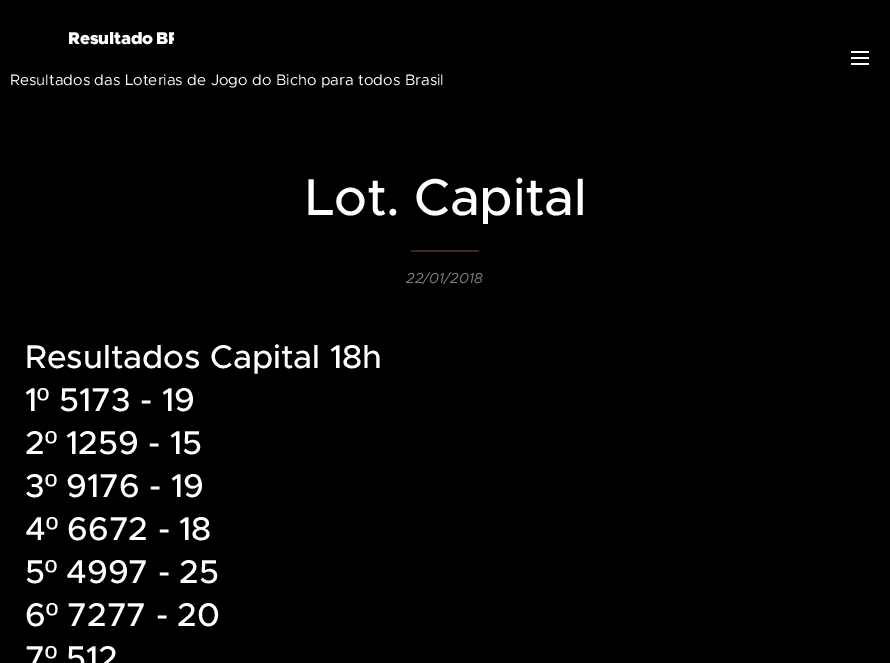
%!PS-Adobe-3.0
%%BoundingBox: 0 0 890 663
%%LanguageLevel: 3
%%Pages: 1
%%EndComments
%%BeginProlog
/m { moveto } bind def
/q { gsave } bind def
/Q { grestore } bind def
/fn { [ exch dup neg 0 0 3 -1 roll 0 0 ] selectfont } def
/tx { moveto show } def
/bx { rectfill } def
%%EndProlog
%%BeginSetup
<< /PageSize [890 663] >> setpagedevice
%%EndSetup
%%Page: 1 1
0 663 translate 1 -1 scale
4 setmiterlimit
0 setgray
0 0 890 663 bx
q
64 26 110 28 rectclip
/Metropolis-Black 17.25 fn
1 setgray
68 44 m -1 0 32 -0.25 0 (Resultado BR) awidthshow
Q
/Metropolis-Regular 15.2 fn
1 setgray
(Resultados das Loterias de Jogo do Bicho para todos Brasil) 10 85 tx
851 57 18 2 bx
851 51 18 2 bx
851 63 18 2 bx
/Metropolis-Medium 52 fn
305 215 m -0.25 0 (Lot. Capital) ashow
0.263 0.149 0.098 setrgbcolor
411 250 68 2 bx
/Metropolis-Italic 14.5 fn
0.502 setgray
(22/01/2018) 406 283 tx
/Metropolis-Medium 33 fn
1 setgray
(Resultados Capital 18h) 25 368 tx
(1) 25 411 tx
/LiberationSans-Regular 33 fn
(º) 37 411 tx
/Metropolis-Medium 33 fn
(5173 - 19) 59 411 tx
(2) 25 454 tx
/LiberationSans-Regular 33 fn
(º) 45 454 tx
/Metropolis-Medium 33 fn
(1259 - 15) 66 454 tx
(3) 25 497 tx
/LiberationSans-Regular 33 fn
(º) 45 497 tx
/Metropolis-Medium 33 fn
(9176 - 19) 66 497 tx
(4) 25 540 tx
/LiberationSans-Regular 33 fn
(º) 46 540 tx
/Metropolis-Medium 33 fn
(6672 - 18) 67 540 tx
(5) 25 583 tx
/LiberationSans-Regular 33 fn
(º) 45 583 tx
/Metropolis-Medium 33 fn
(4997 - 25) 66 583 tx
(6) 25 626 tx
/LiberationSans-Regular 33 fn
(º) 46 626 tx
/Metropolis-Medium 33 fn
(7277 - 20) 67 626 tx
(7) 25 669 tx
/LiberationSans-Regular 33 fn
(º) 45 669 tx
/Metropolis-Medium 33 fn
(512) 66 669 tx
showpage
%%EOF
